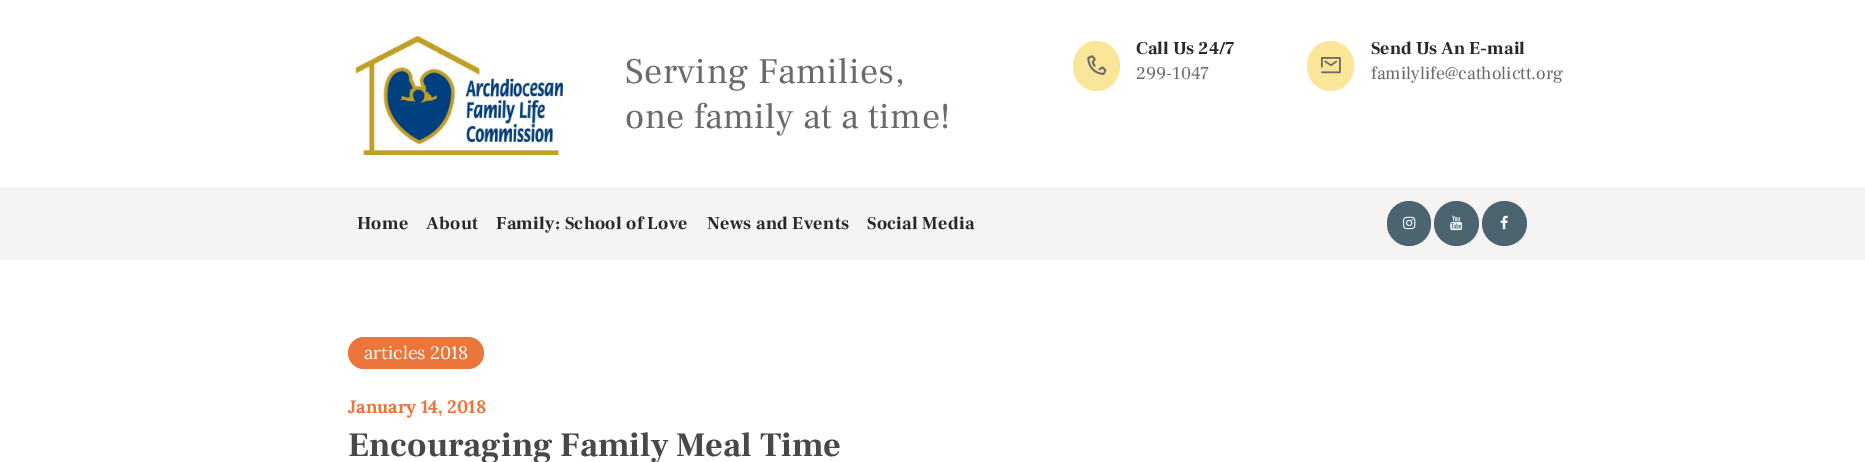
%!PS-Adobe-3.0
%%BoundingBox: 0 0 1865 462
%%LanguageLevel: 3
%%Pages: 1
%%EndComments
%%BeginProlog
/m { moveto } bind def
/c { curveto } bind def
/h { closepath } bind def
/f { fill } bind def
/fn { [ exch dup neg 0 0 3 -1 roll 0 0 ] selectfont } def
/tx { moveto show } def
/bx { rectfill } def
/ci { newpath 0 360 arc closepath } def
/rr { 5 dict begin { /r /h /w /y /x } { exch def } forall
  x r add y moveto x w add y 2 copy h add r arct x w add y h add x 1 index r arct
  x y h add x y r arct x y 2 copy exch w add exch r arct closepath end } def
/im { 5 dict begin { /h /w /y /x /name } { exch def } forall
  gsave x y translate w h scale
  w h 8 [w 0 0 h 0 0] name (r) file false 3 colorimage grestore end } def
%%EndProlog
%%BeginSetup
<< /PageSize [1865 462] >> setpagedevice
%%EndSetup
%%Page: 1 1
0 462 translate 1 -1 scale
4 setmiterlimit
1 setgray
0 0 1865 462 bx
(image0.raw) 356 36 207 119 im
/FrankRuhlLibre-Regular 36 fn
0.424 0.412 0.404 setrgbcolor
625 83 m 0.4 0 (Serving Families,) ashow
625 128 m 0.4 0 (one family at a time!) ashow
0.976 0.902 0.6 setrgbcolor
1096.5 41 m 1109.5 41 1120 52 1120 66 c 1120 80 1109.5 91 1096.5 91 c 1083.5 91 1073 80 1073 66 c 1073 52 1083.5 41 1096.5 41 c h f
(image1.raw) 1087 55 20 20 im
/FrankRuhlLibre-Bold 18 fn
0.157 setgray
(Call Us 24/7) 1136 54 tx
/FrankRuhlLibre-Regular 18 fn
0.424 0.412 0.404 setrgbcolor
(299-1047) 1136 79 tx
0.976 0.902 0.6 setrgbcolor
1330.5 41 m 1343.5 41 1354 52 1354 66 c 1354 80 1343.5 91 1330.5 91 c 1317.5 91 1307 80 1307 66 c 1307 52 1317.5 41 1330.5 41 c h f
(image2.raw) 1321 57 20 17 im
/FrankRuhlLibre-Bold 18 fn
0.157 setgray
(Send Us An E-mail) 1371 54 tx
/FrankRuhlLibre-Regular 18 fn
0.424 0.412 0.404 setrgbcolor
(familylife@catholictt.org) 1371 79 tx
0.961 0.957 0.949 setrgbcolor
0 187 1865 73 bx
/FrankRuhlLibre-Bold 18 fn
0.157 setgray
357 229 m 0.3 0 (Home) ashow
426 229 m 0.3 0 (About) ashow
496 229 m 0.3 0 (Family: School of Love) ashow
707 229 m 0.3 0 (News and Events) ashow
867 229 m 0.3 0 (Social Media) ashow
0.294 0.392 0.435 setrgbcolor
1387 201 44 45 22 rr f
(image3.raw) 1403 216 13 14 im
1456.5 223.5 22.5 ci f
(image4.raw) 1450 215 13 16 im
1504.5 223.5 22.5 ci f
(image5.raw) 1500 215 8 15 im
0.922 0.463 0.235 setrgbcolor
348 337 136 32 16 rr f
/Lora-Regular 18 fn
1 setgray
(articles 2018) 364 359 tx
/Lora-Bold 18 fn
0.922 0.463 0.235 setrgbcolor
(January 14, 2018) 348 413 tx
/FrankRuhlLibre-Bold 34.25 fn
0.282 setgray
(Encouraging Family Meal Time) 348 456 tx
showpage
%%EOF
